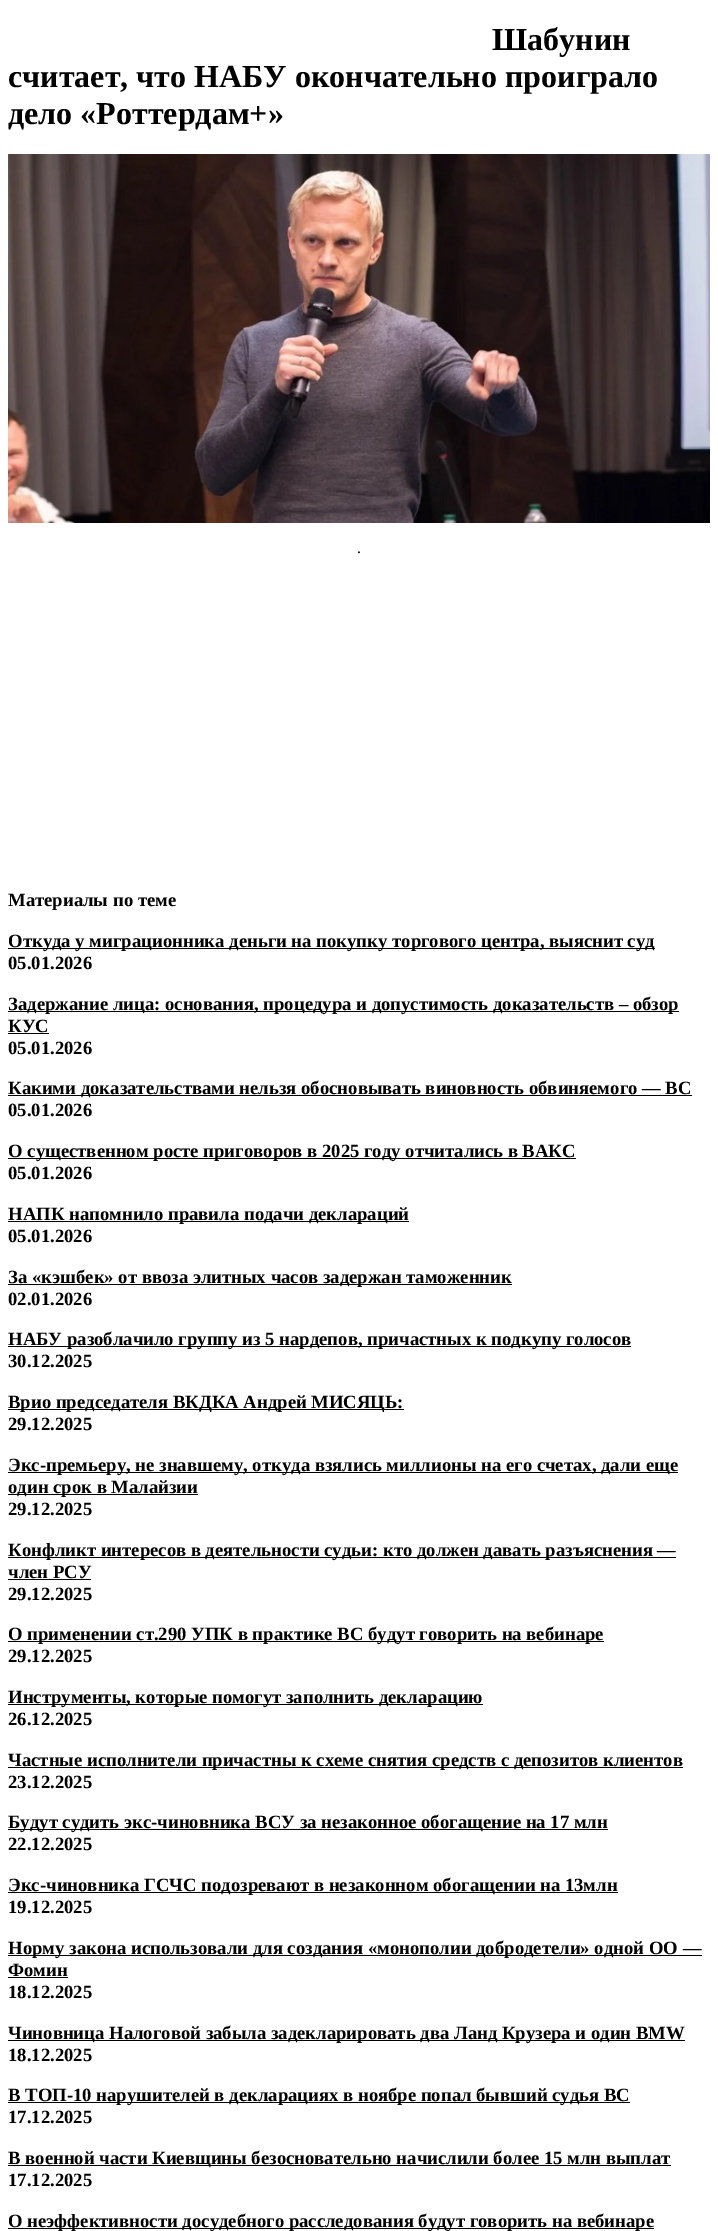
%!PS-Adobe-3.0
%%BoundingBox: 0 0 718 2231
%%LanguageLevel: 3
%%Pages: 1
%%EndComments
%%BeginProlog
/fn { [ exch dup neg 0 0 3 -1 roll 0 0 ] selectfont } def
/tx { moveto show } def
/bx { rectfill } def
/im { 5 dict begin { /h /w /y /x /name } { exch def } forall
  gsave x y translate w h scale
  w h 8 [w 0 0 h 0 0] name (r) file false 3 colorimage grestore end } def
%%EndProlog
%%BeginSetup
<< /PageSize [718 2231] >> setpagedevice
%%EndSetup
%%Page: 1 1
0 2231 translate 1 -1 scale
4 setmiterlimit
1 setgray
0 0 718 2231 bx
/LiberationSerif-Bold 32 fn
0 setgray
(Шабунин) 492 50 tx
(считает, что НАБУ окончательно проиграло) 8 87 tx
(дело «Роттердам+») 8 124 tx
(image0.raw) 8 154 702 369 im
/LiberationSerif-Regular 16 fn
(.) 357 553 tx
/LiberationSerif-Bold 18.7 fn
(Материалы по теме) 8 906 tx
8 948 647 1 bx
(Откуда у миграционника деньги на покупку торгового центра, выяснит суд) 8 947 tx
(05.01.2026) 8 969 tx
8 1011 671 1 bx
(Задержание лица: основания, процедура и допустимость доказательств – обзор) 8 1010 tx
(КУС) 8 1032 tx
8 1033 41 1 bx
(05.01.2026) 8 1054 tx
8 1095 684 1 bx
(Какими доказательствами нельзя обосновывать виновность обвиняемого — ВС) 8 1094 tx
(05.01.2026) 8 1116 tx
8 1158 568 1 bx
(О существенном росте приговоров в 2025 году отчитались в ВАКС) 8 1157 tx
(05.01.2026) 8 1179 tx
8 1221 401 1 bx
(НАПК напомнило правила подачи деклараций) 8 1220 tx
(05.01.2026) 8 1242 tx
8 1284 504 1 bx
(За «кэшбек» от ввоза элитных часов задержан таможенник) 8 1283 tx
(02.01.2026) 8 1305 tx
8 1346 623 1 bx
(НАБУ разоблачило группу из 5 нардепов, причастных к подкупу голосов) 8 1345 tx
(30.12.2025) 8 1367 tx
8 1409 396 1 bx
(Врио председателя ВКДКА Андрей МИСЯЦЬ:) 8 1408 tx
(29.12.2025) 8 1430 tx
8 1472 670 1 bx
(Экс-премьеру, не знавшему, откуда взялись миллионы на его счетах, дали еще) 8 1471 tx
8 1494 190 1 bx
(один срок в Малайзии) 8 1493 tx
(29.12.2025) 8 1515 tx
8 1557 668 1 bx
(Конфликт интересов в деятельности судьи: кто должен давать разъяснения —) 8 1556 tx
(член РСУ) 8 1578 tx
8 1579 83 1 bx
(29.12.2025) 8 1600 tx
8 1641 596 1 bx
(О применении ст.290 УПК в практике ВС будут говорить на вебинаре) 8 1640 tx
(29.12.2025) 8 1662 tx
8 1704 475 1 bx
(Инструменты, которые помогут заполнить декларацию) 8 1703 tx
(26.12.2025) 8 1725 tx
8 1767 675 1 bx
(Частные исполнители причастны к схеме снятия средств с депозитов клиентов) 8 1766 tx
(23.12.2025) 8 1788 tx
8 1829 600 1 bx
(Будут судить экс-чиновника ВСУ за незаконное обогащение на 17 млн) 8 1828 tx
(22.12.2025) 8 1850 tx
8 1892 610 1 bx
(Экс-чиновника ГСЧС подозревают в незаконном обогащении на 13млн) 8 1891 tx
(19.12.2025) 8 1913 tx
8 1955 694 1 bx
(Норму закона использовали для создания «монополии добродетели» одной ОО —) 8 1954 tx
(Фомин) 8 1976 tx
8 1977 60 1 bx
(18.12.2025) 8 1998 tx
8 2040 677 1 bx
(Чиновница Налоговой забыла задекларировать два Ланд Крузера и один BMW) 8 2039 tx
(18.12.2025) 8 2061 tx
8 2102 622 1 bx
(В ТОП-10 нарушителей в декларациях в ноябре попал бывший судья ВС) 8 2101 tx
(17.12.2025) 8 2123 tx
8 2165 663 1 bx
(В военной части Киевщины безосновательно начислили более 15 млн выплат) 8 2164 tx
(17.12.2025) 8 2186 tx
8 2228 646 1 bx
(О неэффективности досудебного расследования будут говорить на вебинаре) 8 2227 tx
showpage
%%EOF
